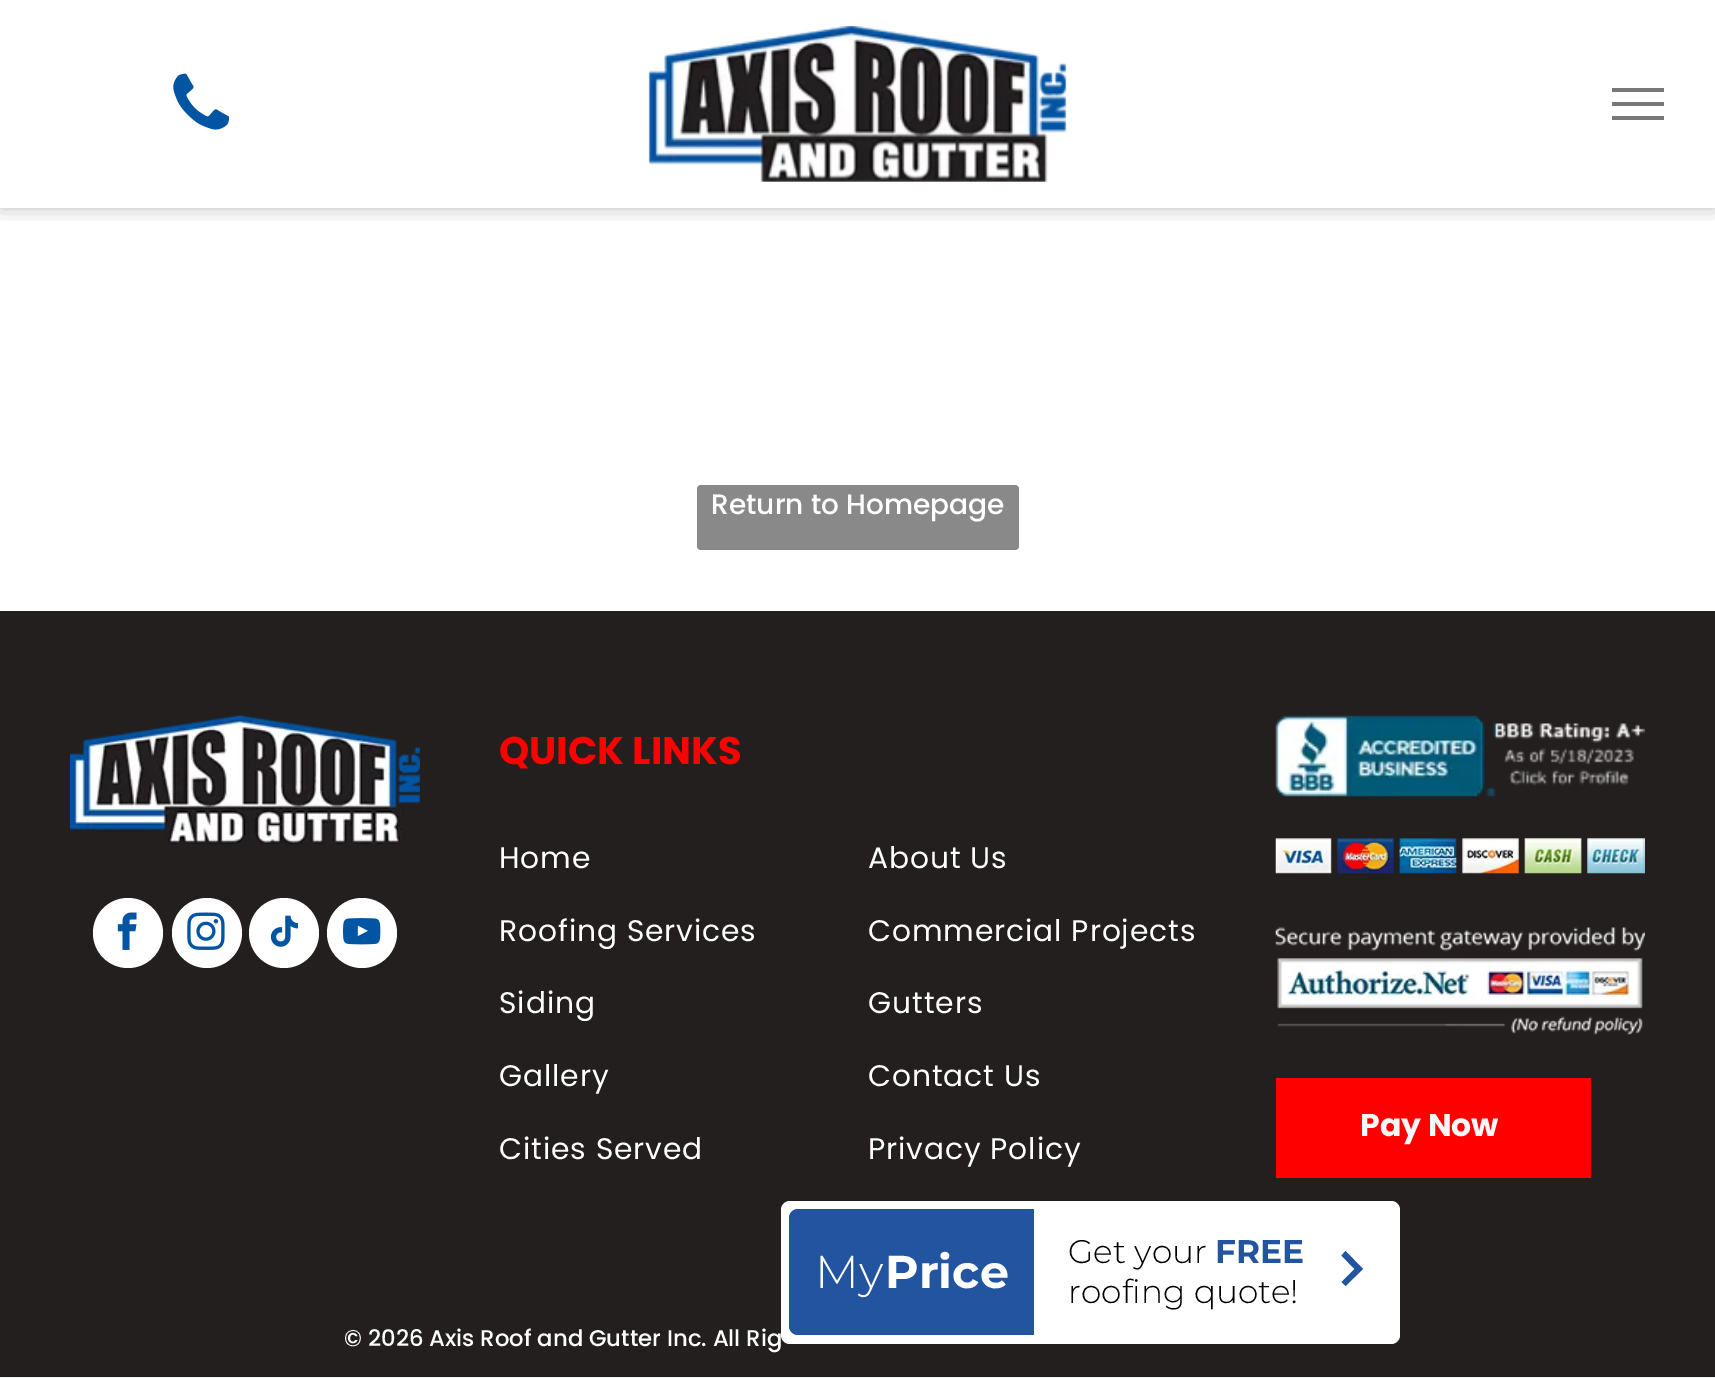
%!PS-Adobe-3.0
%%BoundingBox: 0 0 1715 1378
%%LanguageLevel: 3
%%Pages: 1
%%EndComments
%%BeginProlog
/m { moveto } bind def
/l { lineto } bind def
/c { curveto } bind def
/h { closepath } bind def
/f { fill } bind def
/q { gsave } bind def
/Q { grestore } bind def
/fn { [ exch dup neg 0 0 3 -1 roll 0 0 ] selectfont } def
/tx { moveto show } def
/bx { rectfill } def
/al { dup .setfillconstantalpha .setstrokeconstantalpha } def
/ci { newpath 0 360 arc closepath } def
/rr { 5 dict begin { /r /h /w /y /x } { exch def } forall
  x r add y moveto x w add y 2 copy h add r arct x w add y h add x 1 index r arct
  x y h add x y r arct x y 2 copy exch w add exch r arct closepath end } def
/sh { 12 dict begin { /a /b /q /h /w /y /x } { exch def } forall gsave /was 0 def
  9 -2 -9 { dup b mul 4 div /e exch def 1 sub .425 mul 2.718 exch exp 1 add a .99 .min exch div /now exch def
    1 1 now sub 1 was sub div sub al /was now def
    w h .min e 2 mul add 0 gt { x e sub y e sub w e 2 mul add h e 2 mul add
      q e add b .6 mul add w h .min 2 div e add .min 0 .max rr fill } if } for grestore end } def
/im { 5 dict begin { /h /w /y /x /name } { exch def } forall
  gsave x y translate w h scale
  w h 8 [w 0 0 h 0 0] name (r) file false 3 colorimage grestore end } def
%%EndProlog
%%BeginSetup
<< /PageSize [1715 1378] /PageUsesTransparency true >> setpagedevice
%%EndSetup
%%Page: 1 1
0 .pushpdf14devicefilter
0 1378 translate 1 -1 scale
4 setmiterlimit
0.933 setgray
0 0 1715 1378 bx
1 setgray
0 0 1715 611 bx
q
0 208 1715 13 rectclip
0 setgray
0 0 1715 208 0 9.5 0.25 sh
Q
(image0.raw) 173 73 56 57 im
(image1.raw) 648 26 419 156 im
0.471 setgray
1612 88 52 4 bx
1612 102 52 4 bx
1612 116 52 4 bx
0.537 setgray
697 485 322 65 4 rr f
/Poppins-Medium 28 fn
1 setgray
(Return to Homepage) 711 514 tx
0.137 0.122 0.122 setrgbcolor
0 611 1715 766 bx
(image2.raw) 70 715 350 130 im
1 setgray
128 933 35 ci f
(image3.raw) 117 912 20 38 im
207 933 35 ci f
(image4.raw) 187 912 38 38 im
284 933 35 ci f
(image5.raw) 270 915 28 32 im
362 933 35 ci f
(image6.raw) 343 918 38 27 im
/Poppins-Bold 38.5 fn
1 0 0 setrgbcolor
(QUICK LINKS) 499 764 tx
/Poppins-Regular 29.75 fn
1 setgray
499 868 m 0.9 0 (Home) ashow
499 941 m 0.9 0 (Roofing Services) ashow
499 1013 m 0.9 0 (Siding) ashow
499 1086 m 0.9 0 (Gallery) ashow
499 1159 m 0.9 0 (Cities Served) ashow
868 868 m 0.9 0 (About Us) ashow
868 941 m 0.9 0 (Commercial Projects) ashow
868 1013 m 0.9 0 (Gutters) ashow
868 1086 m 0.9 0 (Contact Us) ashow
868 1159 m 0.9 0 (Privacy Policy) ashow
(image7.raw) 1275 715 370 82 im
(image8.raw) 1275 838 370 36 im
(image9.raw) 1275 927 370 108 im
1 0 0 setrgbcolor
1276 1078 315 100 bx
/Poppins-Bold 31.5 fn
0.969 setgray
(Pay Now) 1360 1136 tx
/Poppins-Medium 22.75 fn
1 setgray
(© 2026 Axis Roof and Gutter Inc. All Rig) 344 1346 tx
781 1201 619 143 9 rr f
0.133 0.329 0.624 setrgbcolor
798 1209 m 1034 1209 l 1034 1335 l 798 1335 l 793 1335 789 1331 789 1326 c 789 1218 l 789 1213 793 1209 798 1209 c h f
/Montserrat-Light 46 fn
1 setgray
(My) 815 1288 tx
/Montserrat-Bold 46 fn
(Price) 885 1288 tx
/Montserrat-Light 32.75 fn
0 setgray
(Get your) 1068 1263 tx
/Montserrat-Bold 32.75 fn
0.133 0.329 0.624 setrgbcolor
(FREE) 1215 1263 tx
/Montserrat-Light 32.75 fn
0 setgray
(roofing quote!) 1068 1303 tx
0.137 0.329 0.624 setrgbcolor
1345.5 1251 m 1341.5 1255.5 l 1354.5 1269 l 1341.5 1282 l 1345.5 1286 l 1363 1269 l h f
.poppdf14devicefilter showpage
%%EOF
